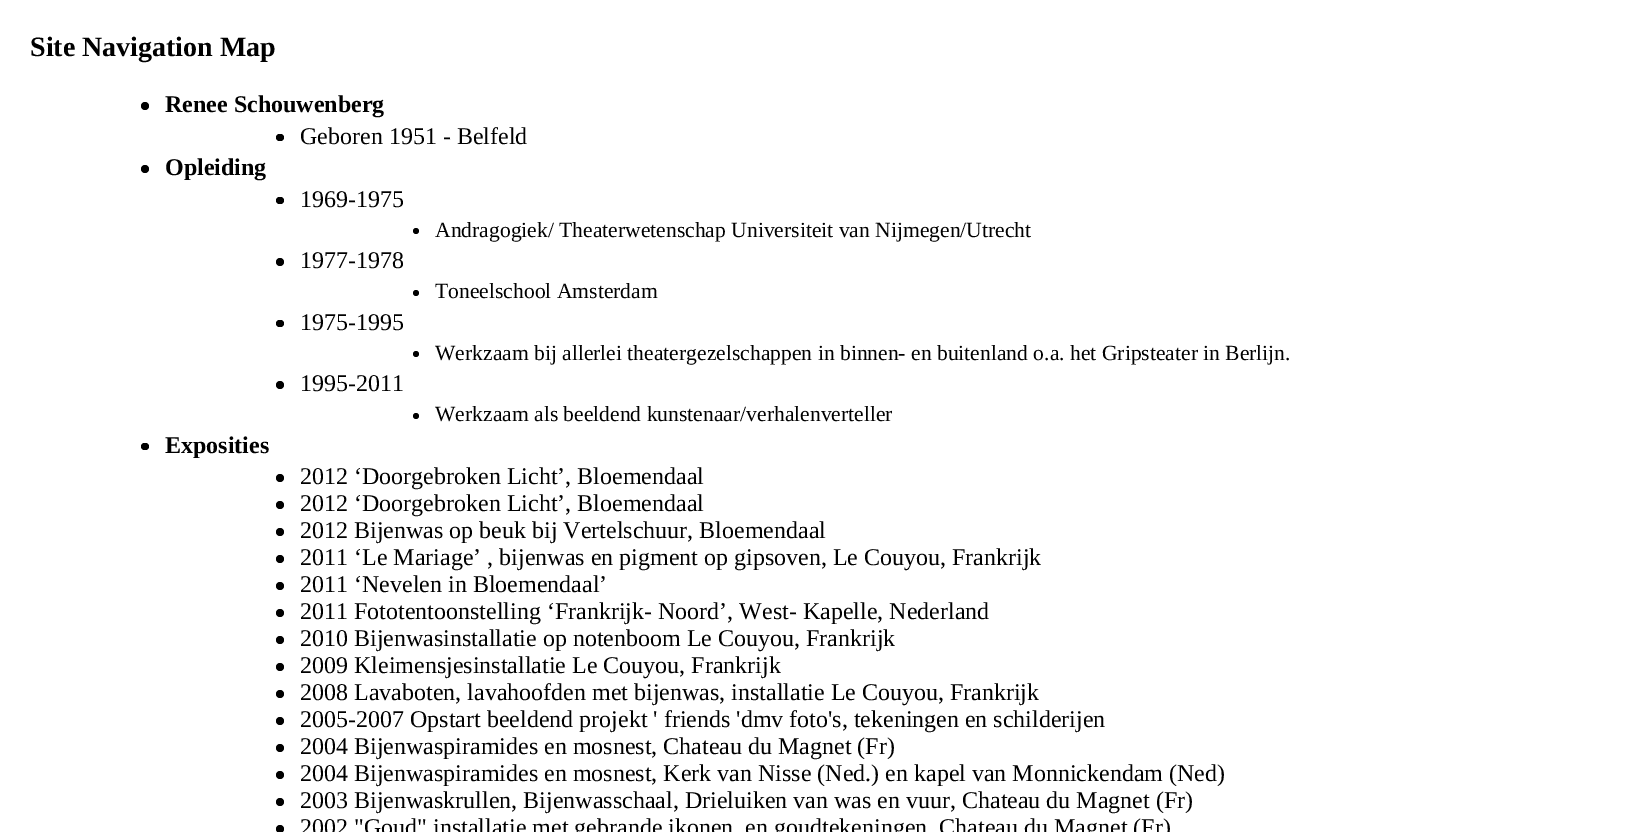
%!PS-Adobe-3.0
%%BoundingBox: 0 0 1626 832
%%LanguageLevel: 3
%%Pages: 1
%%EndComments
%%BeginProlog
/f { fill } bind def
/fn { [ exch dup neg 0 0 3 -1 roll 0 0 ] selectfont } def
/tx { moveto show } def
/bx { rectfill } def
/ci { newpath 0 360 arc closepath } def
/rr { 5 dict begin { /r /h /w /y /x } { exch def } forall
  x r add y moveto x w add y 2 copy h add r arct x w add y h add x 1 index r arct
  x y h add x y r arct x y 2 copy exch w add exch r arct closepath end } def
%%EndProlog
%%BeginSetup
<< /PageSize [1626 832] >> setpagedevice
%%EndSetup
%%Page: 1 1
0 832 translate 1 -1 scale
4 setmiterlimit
1 setgray
0 0 1626 832 bx
/LiberationSerif-Bold 28 fn
0 setgray
(Site Navigation Map) 30 56 tx
145 106 4 ci f
/LiberationSerif-Bold 24 fn
(Renee Schouwenberg) 165 112 tx
276 134 8 7 3.5 rr f
/LiberationSerif-Regular 24 fn
(Geboren 1951 - Belfeld) 300 144 tx
145 169 4 ci f
/LiberationSerif-Bold 24 fn
(Opleiding) 165 175 tx
276 197 8 7 3.5 rr f
/LiberationSerif-Regular 24 fn
(1969-1975) 300 207 tx
416 231 3 ci f
/LiberationSerif-Regular 21.6 fn
(Andragogiek/ Theaterwetenschap Universiteit van Nijmegen/Utrecht) 435 237 tx
280 262 4 ci f
/LiberationSerif-Regular 24 fn
(1977-1978) 300 268 tx
416 293 3 ci f
/LiberationSerif-Regular 21.6 fn
(Toneelschool Amsterdam) 435 298 tx
276 320 8 7 3.5 rr f
/LiberationSerif-Regular 24 fn
(1975-1995) 300 330 tx
416 354 3 ci f
/LiberationSerif-Regular 21.6 fn
(Werkzaam bij allerlei theatergezelschappen in binnen- en buitenland o.a. het Gripsteater in Berlijn.) 435 360 tx
280 385 4 ci f
/LiberationSerif-Regular 24 fn
(1995-2011) 300 391 tx
416 416 3 ci f
/LiberationSerif-Regular 21.6 fn
(Werkzaam als beeldend kunstenaar/verhalenverteller) 435 421 tx
141 443 8 7 3.5 rr f
/LiberationSerif-Bold 24 fn
(Exposities) 165 453 tx
280 478 4 ci f
/LiberationSerif-Regular 24 fn
(2012 ‘Doorgebroken Licht’, Bloemendaal) 300 484 tx
280 505 4 ci f
(2012 ‘Doorgebroken Licht’, Bloemendaal) 300 511 tx
280 532 4 ci f
(2012 Bijenwas op beuk bij Vertelschuur, Bloemendaal) 300 538 tx
280 559 4 ci f
(2011 ‘Le Mariage’ , bijenwas en pigment op gipsoven, Le Couyou, Frankrijk) 300 565 tx
280 586 4 ci f
(2011 ‘Nevelen in Bloemendaal’) 300 592 tx
280 613 4 ci f
(2011 Fototentoonstelling ‘Frankrijk- Noord’, West- Kapelle, Nederland) 300 619 tx
280 640 4 ci f
(2010 Bijenwasinstallatie op notenboom Le Couyou, Frankrijk) 300 646 tx
280 667 4 ci f
(2009 Kleimensjesinstallatie Le Couyou, Frankrijk) 300 673 tx
280 694 4 ci f
(2008 Lavaboten, lavahoofden met bijenwas, installatie Le Couyou, Frankrijk) 300 700 tx
280 721 4 ci f
(2005-2007 Opstart beeldend projekt ' friends 'dmv foto's, tekeningen en schilderijen) 300 727 tx
280 748 4 ci f
(2004 Bijenwaspiramides en mosnest, Chateau du Magnet \(Fr\)) 300 754 tx
280 775 4 ci f
(2004 Bijenwaspiramides en mosnest, Kerk van Nisse \(Ned.\) en kapel van Monnickendam \(Ned\)) 300 781 tx
280 802 4 ci f
(2003 Bijenwaskrullen, Bijenwasschaal, Drieluiken van was en vuur, Chateau du Magnet \(Fr\)) 300 808 tx
280 829 4 ci f
(2002 "Goud" installatie met gebrande ikonen  en goudtekeningen, Chateau du Magnet \(Fr\)) 300 835 tx
showpage
%%EOF
